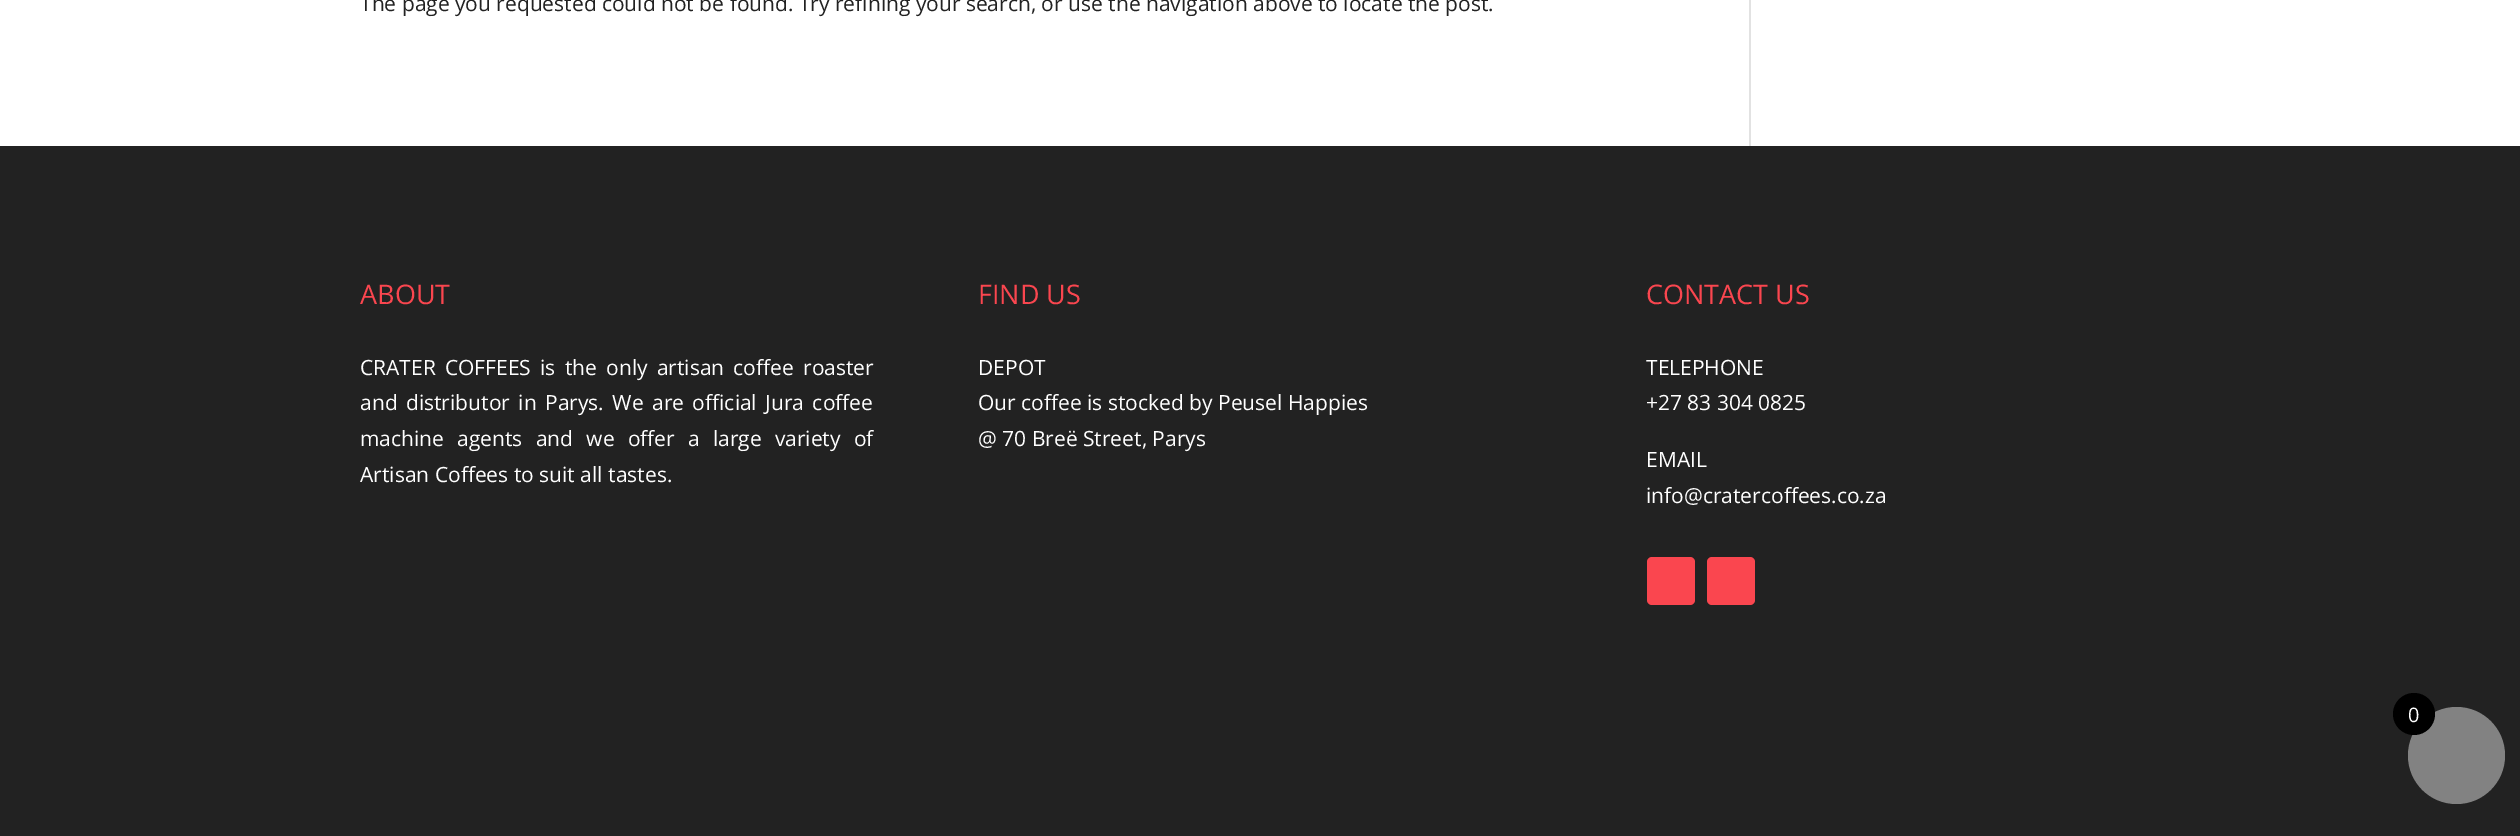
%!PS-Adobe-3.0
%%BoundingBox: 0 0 2520 836
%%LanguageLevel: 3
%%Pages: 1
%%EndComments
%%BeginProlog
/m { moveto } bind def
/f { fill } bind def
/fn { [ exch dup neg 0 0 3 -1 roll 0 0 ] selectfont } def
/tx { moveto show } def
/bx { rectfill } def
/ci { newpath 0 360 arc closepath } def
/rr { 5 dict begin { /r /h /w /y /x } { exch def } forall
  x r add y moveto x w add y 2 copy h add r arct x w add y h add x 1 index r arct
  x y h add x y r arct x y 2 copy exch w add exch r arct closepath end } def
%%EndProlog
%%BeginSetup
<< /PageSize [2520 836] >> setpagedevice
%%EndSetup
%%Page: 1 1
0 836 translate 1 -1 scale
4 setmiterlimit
1 setgray
0 0 2520 836 bx
/OpenSans-Regular 21 fn
0.133 setgray
(The page you requested could not be found. Try refining your search, or use the navigation above to locate the post.) 360 11 tx
0.886 setgray
1749 0 2 146 bx
0.133 setgray
0 146 2520 690 bx
/OpenSans-Regular 27 fn
0.98 0.275 0.31 setrgbcolor
(ABOUT) 360 304 tx
/OpenSans-Regular 21 fn
1 setgray
360 375 m 3.75 0 32 (CRATER COFFEES is the only artisan coffee roaster) widthshow
360 410 m 3 0 32 (and distributor in Parys. We are official Jura coffee) widthshow
360 446 m 7.75 0 32 (machine agents and we offer a large variety of) widthshow
(Artisan Coffees to suit all tastes.) 360 482 tx
/OpenSans-Regular 27 fn
0.98 0.275 0.31 setrgbcolor
(FIND US) 978 304 tx
/OpenSans-Regular 21 fn
1 setgray
(DEPOT) 978 375 tx
(Our coffee is stocked by Peusel Happies) 978 410 tx
(@ 70 Breë Street, Parys) 978 446 tx
/OpenSans-Regular 27 fn
0.98 0.275 0.31 setrgbcolor
(CONTACT US) 1646 304 tx
/OpenSans-Regular 21 fn
1 setgray
(TELEPHONE) 1646 375 tx
(+27 83 304 0825) 1646 410 tx
(EMAIL) 1646 467 tx
(info@cratercoffees.co.za) 1646 503 tx
0.98 0.275 0.31 setrgbcolor
1647 557 48 48 5 rr f
1707 557 48 48 5 rr f
0.51 setgray
2456.5 755.5 48.5 ci f
0 setgray
2414 714 21 ci f
/OpenSans-Regular 20 fn
1 setgray
(0) 2408 722 tx
showpage
%%EOF
